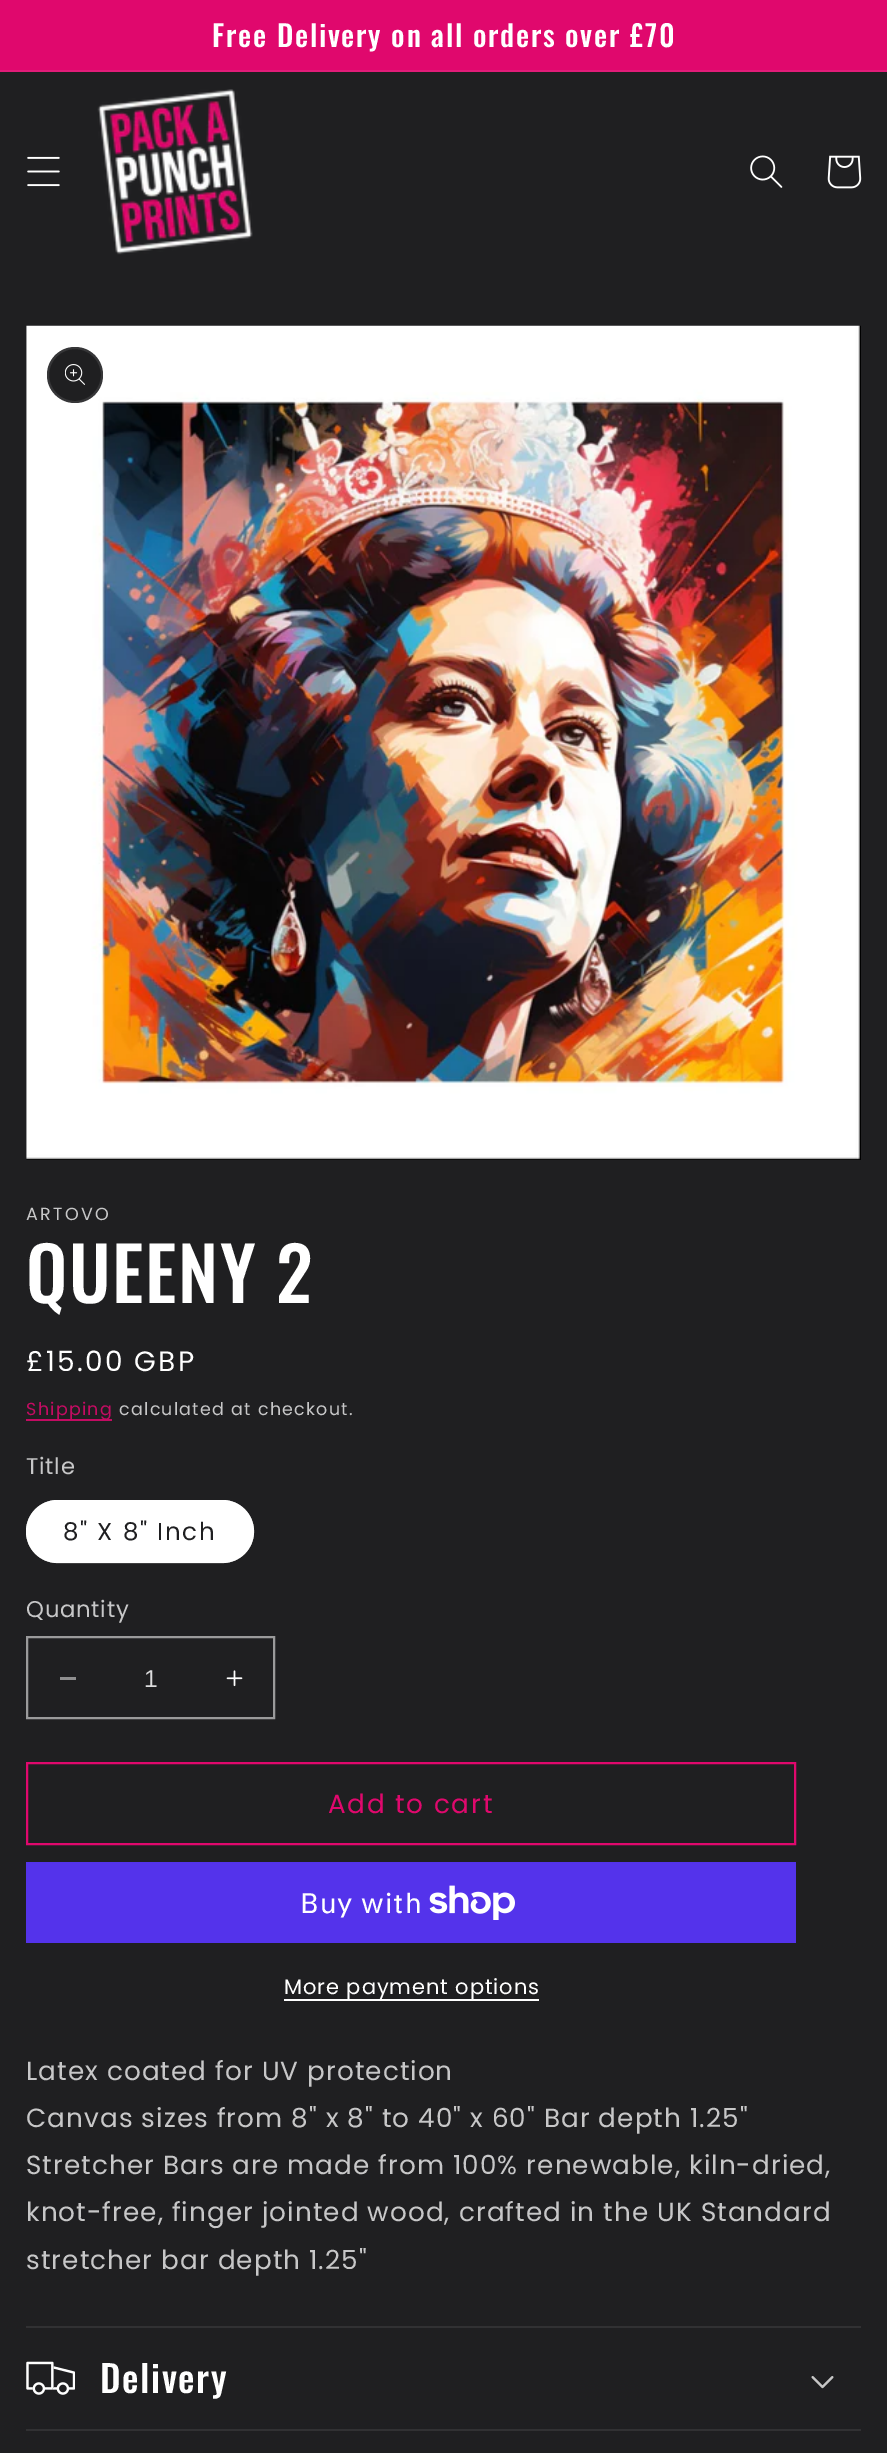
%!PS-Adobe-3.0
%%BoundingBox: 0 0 887 2453
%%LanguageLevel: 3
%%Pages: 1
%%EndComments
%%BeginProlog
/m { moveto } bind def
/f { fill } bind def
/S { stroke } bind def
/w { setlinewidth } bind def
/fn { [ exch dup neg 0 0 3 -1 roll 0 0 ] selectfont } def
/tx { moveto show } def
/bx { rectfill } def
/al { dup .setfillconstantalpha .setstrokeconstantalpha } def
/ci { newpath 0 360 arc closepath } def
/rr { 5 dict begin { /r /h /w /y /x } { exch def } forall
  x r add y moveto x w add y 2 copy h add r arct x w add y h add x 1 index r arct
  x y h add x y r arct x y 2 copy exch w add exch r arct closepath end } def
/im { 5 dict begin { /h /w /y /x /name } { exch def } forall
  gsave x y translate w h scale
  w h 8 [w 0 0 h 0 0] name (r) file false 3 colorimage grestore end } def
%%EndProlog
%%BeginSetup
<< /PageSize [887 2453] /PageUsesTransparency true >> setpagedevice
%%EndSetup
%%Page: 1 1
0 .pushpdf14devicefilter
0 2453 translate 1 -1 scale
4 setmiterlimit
0.122 0.122 0.129 setrgbcolor
0 0 887 2453 bx
0.878 0.031 0.427 setrgbcolor
0 0 887 70 bx
0.886 0.11 0.475 setrgbcolor
0 70 887 2 bx
/Oswald-Medium 29.4 fn
1 setgray
212 47 m 1.75 0 (Free Delivery on all orders over £70) ashow
(image0.raw) 27 156 33 31 im
(image1.raw) 97 89 156 166 im
(image2.raw) 750 155 33 33 im
(image3.raw) 827 155 35 34 im
(image4.raw) 26 325 835 835 im
0.122 0.122 0.129 setrgbcolor
75 375 28 ci f
0.1 al
1 setgray
2 w
75 375 27 ci S
1 al
(image5.raw) 65 364 20 21 im
/Poppins-Regular 17.5 fn
0.78 0.78 0.784 setrgbcolor
26 1220 m 2.25 0 (ARTOVO) ashow
/Oswald-Medium 73.5 fn
1 setgray
26 1303 m 1.5 0 (QUEENY 2) ashow
/Poppins-Regular 28 fn
26 1371 m 2.25 0 (£15.00 GBP) ashow
0.765 0.043 0.384 setrgbcolor
26 1419 86 2 bx
/Poppins-Regular 17.5 fn
0.769 0.043 0.384 setrgbcolor
26 1415 m 1.25 0 (Shipping) ashow
0.78 0.78 0.784 setrgbcolor
119 1415 m 1.25 0 (calculated at checkout.) ashow
/Poppins-Regular 22.75 fn
26 1474 m 0.75 0 (Title) ashow
1 setgray
26 1500 228 63 31.5 rr f
0.55 al
27 1501 226 61 30.5 rr S
/Poppins-Regular 24.5 fn
1 al
0.122 0.122 0.129 setrgbcolor
63 1540 m 1.75 0 (8" X 8" Inch) ashow
/Poppins-Regular 22.75 fn
0.78 0.78 0.784 setrgbcolor
26 1617 m 0.75 0 (Quantity) ashow
0.561 0.561 0.565 setrgbcolor
60 1677 16 3 bx
(image6.raw) 226 1670 17 17 im
0.604 0.604 0.608 setrgbcolor
27 1637 247 81 rectstroke
/LiberationSans-Regular 24.5 fn
0.867 0.867 0.871 setrgbcolor
(1) 144 1687 tx
0.878 0.031 0.427 setrgbcolor
27 1763 768 81 rectstroke
/Poppins-Regular 26.25 fn
328 1813 m 1.75 0 (Add to cart) ashow
0.329 0.2 0.922 setrgbcolor
26 1862 770 81 bx
/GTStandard-Regular 28 fn
1 setgray
300 1913 m 1.05 0 (Buy with) ashow
(image7.raw) 429 1885 86 35 im
284 1999 255 2 bx
/Poppins-Regular 21 fn
284 1994 m 0.9 0 (More payment options) ashow
/Poppins-Regular 26.25 fn
0.78 0.78 0.784 setrgbcolor
26 2080 m 1.05 0 (Latex coated for UV protection) ashow
26 2127 m 1.05 0 (Canvas sizes from 8" x 8" to 40" x 60" Bar depth 1.25") ashow
26 2174 m 1.05 0 (Stretcher Bars are made from 100% renewable, kiln-dried,) ashow
26 2221 m 1.05 0 (knot-free, finger jointed wood, crafted in the UK Standard) ashow
26 2269 m 1.05 0 (stretcher bar depth 1.25") ashow
0.192 0.192 0.2 setrgbcolor
26 2326 835 2 bx
26 2429 835 2 bx
(image8.raw) 26 2361 49 34 im
/Oswald-Medium 37 fn
1 setgray
100 2393 m 1.5 0 (Delivery) ashow
(image9.raw) 811 2376 23 13 im
.poppdf14devicefilter showpage
%%EOF
